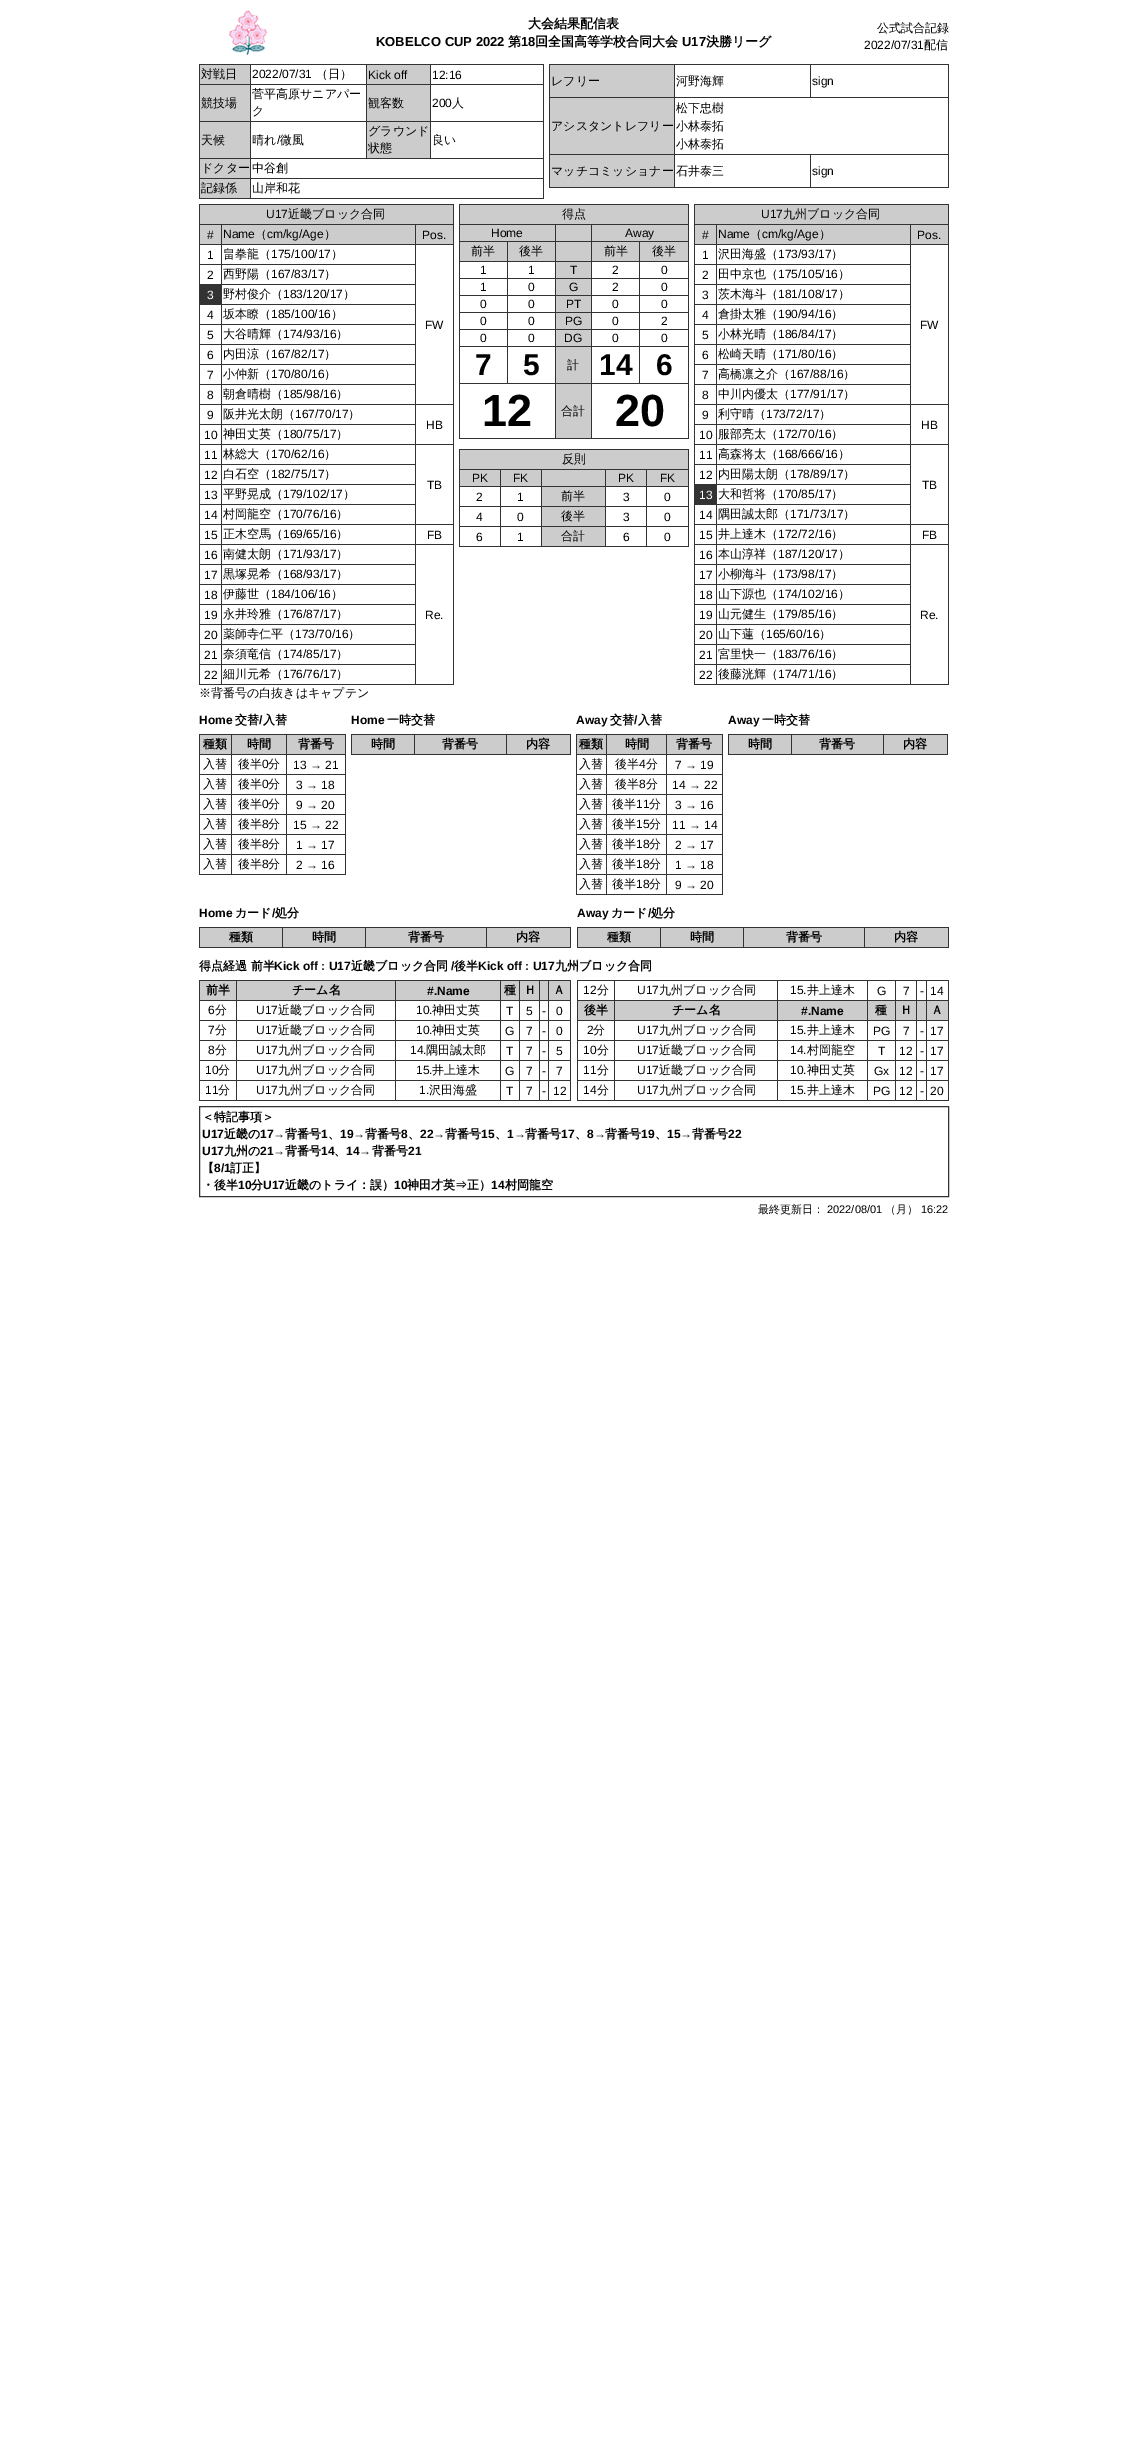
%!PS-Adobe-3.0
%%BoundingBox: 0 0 1147 2458
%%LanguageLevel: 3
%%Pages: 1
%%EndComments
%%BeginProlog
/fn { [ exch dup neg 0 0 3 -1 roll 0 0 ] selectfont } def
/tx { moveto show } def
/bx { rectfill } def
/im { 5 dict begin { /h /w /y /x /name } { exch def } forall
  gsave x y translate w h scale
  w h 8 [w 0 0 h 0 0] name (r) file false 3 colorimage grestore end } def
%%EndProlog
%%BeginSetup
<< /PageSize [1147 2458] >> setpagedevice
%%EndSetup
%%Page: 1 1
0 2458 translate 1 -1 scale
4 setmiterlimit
1 setgray
0 0 1147 2458 bx
(image0.raw) 229 10 38 45 im
/WenQuanYiZenHei-Bold 13 fn
0 setgray
(大会結果配信表) 528 28 tx
/LiberationSans-Bold 13 fn
(KOBELCO CUP 2022) 376 46 tx
/WenQuanYiZenHei-Bold 13 fn
(第) 508 46 tx
/LiberationSans-Bold 13 fn
(18) 521 46 tx
/WenQuanYiZenHei-Bold 13 fn
(回全国高等学校合同大会) 535 46 tx
/LiberationSans-Bold 13 fn
(U17) 682 46 tx
/WenQuanYiZenHei-Bold 13 fn
(決勝リーグ) 706 46 tx
/WenQuanYiZenHei-Medium 12 fn
(公式試合記録) 877 32 tx
/LiberationSans-Regular 12 fn
(2022/07/31) 864 49 tx
/WenQuanYiZenHei-Medium 12 fn
(配信) 924 49 tx
0.2 setgray
199 64 345 1 bx
543 64 1 135 bx
199 198 345 1 bx
199 64 1 135 bx
0.8 setgray
200 65 50 19 bx
0 setgray
(対戦日) 201 78 tx
0.2 setgray
430 84 114 1 bx
430 121 114 1 bx
250 158 294 1 bx
430 121 1 38 bx
366 121 65 1 bx
430 84 1 38 bx
366 84 65 1 bx
366 121 1 38 bx
250 121 117 1 bx
366 84 1 38 bx
250 84 117 1 bx
250 178 294 1 bx
250 178 1 21 bx
199 178 52 1 bx
250 158 1 21 bx
199 158 52 1 bx
250 121 1 38 bx
199 121 52 1 bx
250 84 1 38 bx
199 84 52 1 bx
250 64 1 21 bx
/LiberationSans-Regular 12 fn
0 setgray
(2022/07/31) 252 78 tx
/WenQuanYiZenHei-Medium 12 fn
(（日）) 316 78 tx
0.8 setgray
367 65 63 19 bx
0.2 setgray
366 64 1 21 bx
/LiberationSans-Regular 12 fn
0 setgray
(Kick off) 368 79 tx
0.2 setgray
430 64 1 21 bx
0 setgray
(12:16) 432 79 tx
0.8 setgray
200 85 50 36 bx
/WenQuanYiZenHei-Medium 12 fn
0 setgray
(競技場) 201 107 tx
(菅平高原サニアパー) 252 98 tx
(ク) 252 115 tx
0.8 setgray
367 85 63 36 bx
0 setgray
(観客数) 368 107 tx
/LiberationSans-Regular 12 fn
(200) 432 107 tx
/WenQuanYiZenHei-Medium 12 fn
(人) 452 107 tx
0.8 setgray
200 122 50 36 bx
0 setgray
(天候) 201 144 tx
(晴れ 微風) 252 144 tx
/LiberationSans-Regular 12 fn
(/) 277 144 tx
0.8 setgray
367 122 63 36 bx
/WenQuanYiZenHei-Medium 12 fn
0 setgray
(グラウンド) 368 135 tx
(状態) 368 152 tx
(良い) 432 144 tx
0.8 setgray
200 159 50 19 bx
0 setgray
(ドクター) 201 172 tx
(中谷創) 252 172 tx
0.8 setgray
200 179 50 19 bx
0 setgray
(記録係) 201 192 tx
(山岸和花) 252 192 tx
0.2 setgray
549 64 400 1 bx
948 64 1 124 bx
549 187 400 1 bx
549 64 1 124 bx
0.8 setgray
550 65 124 32 bx
0 setgray
(レフリー) 551 85 tx
0.2 setgray
674 97 275 1 bx
810 154 139 1 bx
810 154 1 34 bx
674 154 137 1 bx
674 154 1 34 bx
549 154 126 1 bx
674 97 1 58 bx
549 97 126 1 bx
674 64 1 34 bx
0 setgray
(河野海輝) 676 85 tx
0.2 setgray
810 64 1 34 bx
/LiberationSans-Regular 12 fn
0 setgray
(sign) 812 85 tx
0.8 setgray
550 98 124 56 bx
/WenQuanYiZenHei-Medium 12 fn
0 setgray
(アシスタントレフリー) 551 130 tx
(松下忠樹) 676 112 tx
(小林泰拓) 676 130 tx
(小林泰拓) 676 148 tx
0.8 setgray
550 155 124 32 bx
0 setgray
(マッチコミッショナー) 551 175 tx
(石井泰三) 676 175 tx
/LiberationSans-Regular 12 fn
(sign) 812 175 tx
0.2 setgray
199 204 255 1 bx
453 204 1 481 bx
199 684 255 1 bx
199 204 1 481 bx
0.8 setgray
200 205 253 19 bx
0 setgray
(U17) 266 218 tx
/WenQuanYiZenHei-Medium 12 fn
(近畿ブロック合同) 288 218 tx
0.8 setgray
200 225 21 19 bx
0.2 setgray
221 224 233 1 bx
221 244 233 1 bx
221 264 195 1 bx
199 284 217 1 bx
221 264 1 21 bx
199 264 23 1 bx
221 244 1 21 bx
199 244 23 1 bx
221 224 1 21 bx
199 224 23 1 bx
/LiberationSans-Regular 12 fn
0 setgray
(#) 207 239 tx
0.8 setgray
222 225 193 19 bx
0.2 setgray
200 285 22 20 bx
221 304 195 1 bx
221 324 195 1 bx
221 344 195 1 bx
221 364 195 1 bx
221 384 195 1 bx
221 404 233 1 bx
221 424 195 1 bx
221 444 233 1 bx
221 464 195 1 bx
221 484 195 1 bx
221 504 195 1 bx
221 524 233 1 bx
221 544 233 1 bx
221 564 195 1 bx
221 584 195 1 bx
221 604 195 1 bx
221 624 195 1 bx
221 644 195 1 bx
221 664 195 1 bx
415 664 1 21 bx
415 644 1 21 bx
415 624 1 21 bx
415 604 1 21 bx
415 584 1 21 bx
415 564 1 21 bx
415 544 1 21 bx
415 524 1 21 bx
415 504 1 21 bx
415 484 1 21 bx
415 464 1 21 bx
415 444 1 21 bx
415 424 1 21 bx
415 404 1 21 bx
415 384 1 21 bx
415 364 1 21 bx
415 344 1 21 bx
415 324 1 21 bx
415 304 1 21 bx
415 284 1 21 bx
415 264 1 21 bx
415 244 1 21 bx
415 224 1 21 bx
0 setgray
(Name) 223 238 tx
/WenQuanYiZenHei-Medium 12 fn
(（) 255 238 tx
/LiberationSans-Regular 12 fn
(cm/kg/Age) 267 238 tx
/WenQuanYiZenHei-Medium 12 fn
(）) 324 238 tx
0.8 setgray
416 225 37 19 bx
/LiberationSans-Regular 12 fn
0 setgray
(Pos.) 422 239 tx
(1) 207 259 tx
/WenQuanYiZenHei-Medium 12 fn
(畠拳龍（) 223 258 tx
/LiberationSans-Regular 12 fn
(175/100/17) 271 258 tx
/WenQuanYiZenHei-Medium 12 fn
(）) 331 258 tx
/LiberationSans-Regular 12 fn
(FW) 425 329 tx
(2) 207 279 tx
/WenQuanYiZenHei-Medium 12 fn
(西野陽（) 223 278 tx
/LiberationSans-Regular 12 fn
(167/83/17) 271 278 tx
/WenQuanYiZenHei-Medium 12 fn
(）) 324 278 tx
/LiberationSans-Regular 12 fn
1 setgray
(3) 207 299 tx
/WenQuanYiZenHei-Medium 12 fn
0 setgray
(野村俊介（) 223 298 tx
/LiberationSans-Regular 12 fn
(183/120/17) 283 298 tx
/WenQuanYiZenHei-Medium 12 fn
(）) 343 298 tx
/LiberationSans-Regular 12 fn
(4) 207 319 tx
0.2 setgray
221 664 1 21 bx
199 664 23 1 bx
221 644 1 21 bx
199 644 23 1 bx
221 624 1 21 bx
199 624 23 1 bx
221 604 1 21 bx
199 604 23 1 bx
221 584 1 21 bx
199 584 23 1 bx
221 564 1 21 bx
199 564 23 1 bx
221 544 1 21 bx
199 544 23 1 bx
221 524 1 21 bx
199 524 23 1 bx
221 504 1 21 bx
199 504 23 1 bx
221 484 1 21 bx
199 484 23 1 bx
221 464 1 21 bx
199 464 23 1 bx
221 444 1 21 bx
199 444 23 1 bx
221 424 1 21 bx
199 424 23 1 bx
221 404 1 21 bx
199 404 23 1 bx
221 384 1 21 bx
199 384 23 1 bx
221 364 1 21 bx
199 364 23 1 bx
221 344 1 21 bx
199 344 23 1 bx
221 324 1 21 bx
199 324 23 1 bx
221 304 1 21 bx
/WenQuanYiZenHei-Medium 12 fn
0 setgray
(坂本瞭（) 223 318 tx
/LiberationSans-Regular 12 fn
(185/100/16) 271 318 tx
/WenQuanYiZenHei-Medium 12 fn
(）) 331 318 tx
/LiberationSans-Regular 12 fn
(5) 207 339 tx
/WenQuanYiZenHei-Medium 12 fn
(大谷晴輝（) 223 338 tx
/LiberationSans-Regular 12 fn
(174/93/16) 283 338 tx
/WenQuanYiZenHei-Medium 12 fn
(）) 336 338 tx
/LiberationSans-Regular 12 fn
(6) 207 359 tx
/WenQuanYiZenHei-Medium 12 fn
(内田涼（) 223 358 tx
/LiberationSans-Regular 12 fn
(167/82/17) 271 358 tx
/WenQuanYiZenHei-Medium 12 fn
(）) 324 358 tx
/LiberationSans-Regular 12 fn
(7) 207 379 tx
/WenQuanYiZenHei-Medium 12 fn
(小仲新（) 223 378 tx
/LiberationSans-Regular 12 fn
(170/80/16) 271 378 tx
/WenQuanYiZenHei-Medium 12 fn
(）) 324 378 tx
/LiberationSans-Regular 12 fn
(8) 207 399 tx
/WenQuanYiZenHei-Medium 12 fn
(朝倉晴樹（) 223 398 tx
/LiberationSans-Regular 12 fn
(185/98/16) 283 398 tx
/WenQuanYiZenHei-Medium 12 fn
(）) 336 398 tx
/LiberationSans-Regular 12 fn
(9) 207 419 tx
/WenQuanYiZenHei-Medium 12 fn
(阪井光太朗（) 223 418 tx
/LiberationSans-Regular 12 fn
(167/70/17) 295 418 tx
/WenQuanYiZenHei-Medium 12 fn
(）) 348 418 tx
/LiberationSans-Regular 12 fn
(HB) 426 429 tx
(10) 204 439 tx
/WenQuanYiZenHei-Medium 12 fn
(神田丈英（) 223 438 tx
/LiberationSans-Regular 12 fn
(180/75/17) 283 438 tx
/WenQuanYiZenHei-Medium 12 fn
(）) 336 438 tx
/LiberationSans-Regular 12 fn
(11) 204 459 tx
/WenQuanYiZenHei-Medium 12 fn
(林総大（) 223 458 tx
/LiberationSans-Regular 12 fn
(170/62/16) 271 458 tx
/WenQuanYiZenHei-Medium 12 fn
(）) 324 458 tx
/LiberationSans-Regular 12 fn
(TB) 427 489 tx
(12) 204 479 tx
/WenQuanYiZenHei-Medium 12 fn
(白石空（) 223 478 tx
/LiberationSans-Regular 12 fn
(182/75/17) 271 478 tx
/WenQuanYiZenHei-Medium 12 fn
(）) 324 478 tx
/LiberationSans-Regular 12 fn
(13) 204 499 tx
/WenQuanYiZenHei-Medium 12 fn
(平野晃成（) 223 498 tx
/LiberationSans-Regular 12 fn
(179/102/17) 283 498 tx
/WenQuanYiZenHei-Medium 12 fn
(）) 343 498 tx
/LiberationSans-Regular 12 fn
(14) 204 519 tx
/WenQuanYiZenHei-Medium 12 fn
(村岡龍空（) 223 518 tx
/LiberationSans-Regular 12 fn
(170/76/16) 283 518 tx
/WenQuanYiZenHei-Medium 12 fn
(）) 336 518 tx
/LiberationSans-Regular 12 fn
(15) 204 539 tx
/WenQuanYiZenHei-Medium 12 fn
(正木空馬（) 223 538 tx
/LiberationSans-Regular 12 fn
(169/65/16) 283 538 tx
/WenQuanYiZenHei-Medium 12 fn
(）) 336 538 tx
/LiberationSans-Regular 12 fn
(FB) 427 539 tx
(16) 204 559 tx
/WenQuanYiZenHei-Medium 12 fn
(南健太朗（) 223 558 tx
/LiberationSans-Regular 12 fn
(171/93/17) 283 558 tx
/WenQuanYiZenHei-Medium 12 fn
(）) 336 558 tx
/LiberationSans-Regular 12 fn
(Re.) 425 619 tx
(17) 204 579 tx
/WenQuanYiZenHei-Medium 12 fn
(黒塚晃希（) 223 578 tx
/LiberationSans-Regular 12 fn
(168/93/17) 283 578 tx
/WenQuanYiZenHei-Medium 12 fn
(）) 336 578 tx
/LiberationSans-Regular 12 fn
(18) 204 599 tx
/WenQuanYiZenHei-Medium 12 fn
(伊藤世（) 223 598 tx
/LiberationSans-Regular 12 fn
(184/106/16) 271 598 tx
/WenQuanYiZenHei-Medium 12 fn
(）) 331 598 tx
/LiberationSans-Regular 12 fn
(19) 204 619 tx
/WenQuanYiZenHei-Medium 12 fn
(永井玲雅（) 223 618 tx
/LiberationSans-Regular 12 fn
(176/87/17) 283 618 tx
/WenQuanYiZenHei-Medium 12 fn
(）) 336 618 tx
/LiberationSans-Regular 12 fn
(20) 204 639 tx
/WenQuanYiZenHei-Medium 12 fn
(薬師寺仁平（) 223 638 tx
/LiberationSans-Regular 12 fn
(173/70/16) 295 638 tx
/WenQuanYiZenHei-Medium 12 fn
(）) 348 638 tx
/LiberationSans-Regular 12 fn
(21) 204 659 tx
/WenQuanYiZenHei-Medium 12 fn
(奈須竜信（) 223 658 tx
/LiberationSans-Regular 12 fn
(174/85/17) 283 658 tx
/WenQuanYiZenHei-Medium 12 fn
(）) 336 658 tx
/LiberationSans-Regular 12 fn
(22) 204 679 tx
/WenQuanYiZenHei-Medium 12 fn
(細川元希（) 223 678 tx
/LiberationSans-Regular 12 fn
(176/76/17) 283 678 tx
/WenQuanYiZenHei-Medium 12 fn
(）) 336 678 tx
(※背番号の白抜きはキャプテン) 199 697 tx
0.2 setgray
459 204 230 1 bx
688 204 1 235 bx
459 438 230 1 bx
459 204 1 235 bx
0.8 setgray
460 205 228 19 bx
0 setgray
(得点) 562 218 tx
0.8 setgray
460 225 95 16 bx
0.2 setgray
591 224 98 1 bx
639 241 50 1 bx
639 261 50 1 bx
639 278 50 1 bx
639 295 50 1 bx
639 312 50 1 bx
639 329 50 1 bx
639 346 50 1 bx
591 383 98 1 bx
639 346 1 38 bx
591 346 49 1 bx
639 329 1 18 bx
591 329 49 1 bx
639 312 1 18 bx
591 312 49 1 bx
639 295 1 18 bx
591 295 49 1 bx
639 278 1 18 bx
591 278 49 1 bx
639 261 1 18 bx
591 261 49 1 bx
639 241 1 21 bx
591 241 49 1 bx
591 383 1 56 bx
555 383 37 1 bx
591 346 1 38 bx
555 346 37 1 bx
591 329 1 18 bx
555 329 37 1 bx
591 312 1 18 bx
555 312 37 1 bx
591 295 1 18 bx
555 295 37 1 bx
591 278 1 18 bx
555 278 37 1 bx
591 261 1 18 bx
555 261 37 1 bx
591 241 1 21 bx
555 241 37 1 bx
591 224 1 18 bx
555 224 37 1 bx
555 383 1 56 bx
459 383 97 1 bx
555 346 1 38 bx
507 346 49 1 bx
555 329 1 18 bx
507 329 49 1 bx
555 312 1 18 bx
507 312 49 1 bx
555 295 1 18 bx
507 295 49 1 bx
555 278 1 18 bx
507 278 49 1 bx
555 261 1 18 bx
507 261 49 1 bx
555 241 1 21 bx
507 241 49 1 bx
555 224 1 18 bx
459 224 97 1 bx
/LiberationSans-Regular 12 fn
0 setgray
(Home) 491 237 tx
0.8 setgray
556 225 35 16 bx
592 225 96 16 bx
0 setgray
(Away) 625 237 tx
0.8 setgray
460 242 47 19 bx
0.2 setgray
507 346 1 38 bx
459 346 49 1 bx
507 329 1 18 bx
459 329 49 1 bx
507 312 1 18 bx
459 312 49 1 bx
507 295 1 18 bx
459 295 49 1 bx
507 278 1 18 bx
459 278 49 1 bx
507 261 1 18 bx
459 261 49 1 bx
507 241 1 21 bx
459 241 49 1 bx
/WenQuanYiZenHei-Medium 12 fn
0 setgray
(前半) 471 255 tx
0.8 setgray
508 242 47 19 bx
0 setgray
(後半) 519 255 tx
0.8 setgray
556 242 35 19 bx
592 242 47 19 bx
0 setgray
(前半) 604 255 tx
0.8 setgray
640 242 48 19 bx
0 setgray
(後半) 652 255 tx
/LiberationSans-Regular 12 fn
(1) 480 274 tx
(1) 528 274 tx
0.8 setgray
556 262 35 16 bx
0 setgray
(T) 570 274 tx
(2) 612 274 tx
(0) 661 274 tx
(1) 480 291 tx
(0) 528 291 tx
0.8 setgray
556 279 35 16 bx
0 setgray
(G) 569 291 tx
(2) 612 291 tx
(0) 661 291 tx
(0) 480 308 tx
(0) 528 308 tx
0.8 setgray
556 296 35 16 bx
0 setgray
(PT) 566 308 tx
(0) 612 308 tx
(0) 661 308 tx
(0) 480 325 tx
(0) 528 325 tx
0.8 setgray
556 313 35 16 bx
0 setgray
(PG) 565 325 tx
(0) 612 325 tx
(2) 661 325 tx
(0) 480 342 tx
(0) 528 342 tx
0.8 setgray
556 330 35 16 bx
0 setgray
(DG) 564 342 tx
(0) 612 342 tx
(0) 661 342 tx
/LiberationSans-Bold 30 fn
(7) 475 375 tx
(5) 523 375 tx
0.8 setgray
556 347 35 36 bx
/WenQuanYiZenHei-Medium 12 fn
0 setgray
(計) 567 369 tx
/LiberationSans-Bold 30 fn
(14) 599 375 tx
(6) 656 375 tx
/LiberationSans-Bold 45 fn
(12) 482 426 tx
0.8 setgray
556 384 35 54 bx
/WenQuanYiZenHei-Medium 12 fn
0 setgray
(合計) 561 415 tx
/LiberationSans-Bold 45 fn
(20) 615 426 tx
0.2 setgray
459 449 230 1 bx
688 449 1 98 bx
459 546 230 1 bx
459 449 1 98 bx
0.8 setgray
460 450 228 19 bx
/WenQuanYiZenHei-Medium 12 fn
0 setgray
(反則) 562 463 tx
0.8 setgray
460 470 40 16 bx
0.2 setgray
646 469 43 1 bx
646 486 43 1 bx
646 506 43 1 bx
646 526 43 1 bx
646 526 1 21 bx
605 526 42 1 bx
646 506 1 21 bx
605 506 42 1 bx
646 486 1 21 bx
605 486 42 1 bx
646 469 1 18 bx
605 469 42 1 bx
605 526 1 21 bx
541 526 65 1 bx
605 506 1 21 bx
541 506 65 1 bx
605 486 1 21 bx
541 486 65 1 bx
605 469 1 18 bx
541 469 65 1 bx
541 526 1 21 bx
500 526 42 1 bx
541 506 1 21 bx
500 506 42 1 bx
541 486 1 21 bx
500 486 42 1 bx
541 469 1 18 bx
500 469 42 1 bx
500 526 1 21 bx
459 526 42 1 bx
500 506 1 21 bx
459 506 42 1 bx
500 486 1 21 bx
459 486 42 1 bx
500 469 1 18 bx
459 469 42 1 bx
/LiberationSans-Regular 12 fn
0 setgray
(PK) 472 482 tx
0.8 setgray
501 470 40 16 bx
0 setgray
(FK) 513 482 tx
0.8 setgray
542 470 63 16 bx
606 470 40 16 bx
0 setgray
(PK) 618 482 tx
0.8 setgray
647 470 41 16 bx
0 setgray
(FK) 660 482 tx
(2) 476 501 tx
(1) 517 501 tx
0.8 setgray
542 487 63 19 bx
/WenQuanYiZenHei-Medium 12 fn
0 setgray
(前半) 561 500 tx
/LiberationSans-Regular 12 fn
(3) 623 501 tx
(0) 664 501 tx
(4) 476 521 tx
(0) 517 521 tx
0.8 setgray
542 507 63 19 bx
/WenQuanYiZenHei-Medium 12 fn
0 setgray
(後半) 561 520 tx
/LiberationSans-Regular 12 fn
(3) 623 521 tx
(0) 664 521 tx
(6) 476 541 tx
(1) 517 541 tx
0.8 setgray
542 527 63 19 bx
/WenQuanYiZenHei-Medium 12 fn
0 setgray
(合計) 561 540 tx
/LiberationSans-Regular 12 fn
(6) 623 541 tx
(0) 664 541 tx
0.2 setgray
694 204 255 1 bx
948 204 1 481 bx
694 684 255 1 bx
694 204 1 481 bx
0.8 setgray
695 205 253 19 bx
0 setgray
(U17) 761 218 tx
/WenQuanYiZenHei-Medium 12 fn
(九州ブロック合同) 783 218 tx
0.8 setgray
695 225 21 19 bx
0.2 setgray
716 224 233 1 bx
716 244 233 1 bx
716 264 195 1 bx
716 284 195 1 bx
716 304 195 1 bx
716 324 195 1 bx
716 344 195 1 bx
716 364 195 1 bx
716 384 195 1 bx
716 404 233 1 bx
716 424 195 1 bx
716 444 233 1 bx
716 464 195 1 bx
694 484 217 1 bx
716 464 1 21 bx
694 464 23 1 bx
716 444 1 21 bx
694 444 23 1 bx
716 424 1 21 bx
694 424 23 1 bx
716 404 1 21 bx
694 404 23 1 bx
716 384 1 21 bx
694 384 23 1 bx
716 364 1 21 bx
694 364 23 1 bx
716 344 1 21 bx
694 344 23 1 bx
716 324 1 21 bx
694 324 23 1 bx
716 304 1 21 bx
694 304 23 1 bx
716 284 1 21 bx
694 284 23 1 bx
716 264 1 21 bx
694 264 23 1 bx
716 244 1 21 bx
694 244 23 1 bx
716 224 1 21 bx
694 224 23 1 bx
/LiberationSans-Regular 12 fn
0 setgray
(#) 702 239 tx
0.8 setgray
717 225 193 19 bx
0.2 setgray
695 485 22 20 bx
716 504 195 1 bx
716 524 233 1 bx
716 544 233 1 bx
716 564 195 1 bx
716 584 195 1 bx
716 604 195 1 bx
716 624 195 1 bx
716 644 195 1 bx
716 664 195 1 bx
910 664 1 21 bx
910 644 1 21 bx
910 624 1 21 bx
910 604 1 21 bx
910 584 1 21 bx
910 564 1 21 bx
910 544 1 21 bx
910 524 1 21 bx
910 504 1 21 bx
910 484 1 21 bx
910 464 1 21 bx
910 444 1 21 bx
910 424 1 21 bx
910 404 1 21 bx
910 384 1 21 bx
910 364 1 21 bx
910 344 1 21 bx
910 324 1 21 bx
910 304 1 21 bx
910 284 1 21 bx
910 264 1 21 bx
910 244 1 21 bx
910 224 1 21 bx
0 setgray
(Name) 718 238 tx
/WenQuanYiZenHei-Medium 12 fn
(（) 750 238 tx
/LiberationSans-Regular 12 fn
(cm/kg/Age) 762 238 tx
/WenQuanYiZenHei-Medium 12 fn
(）) 819 238 tx
0.8 setgray
911 225 37 19 bx
/LiberationSans-Regular 12 fn
0 setgray
(Pos.) 917 239 tx
(1) 702 259 tx
/WenQuanYiZenHei-Medium 12 fn
(沢田海盛（) 718 258 tx
/LiberationSans-Regular 12 fn
(173/93/17) 778 258 tx
/WenQuanYiZenHei-Medium 12 fn
(）) 831 258 tx
/LiberationSans-Regular 12 fn
(FW) 920 329 tx
(2) 702 279 tx
/WenQuanYiZenHei-Medium 12 fn
(田中京也（) 718 278 tx
/LiberationSans-Regular 12 fn
(175/105/16) 778 278 tx
/WenQuanYiZenHei-Medium 12 fn
(）) 838 278 tx
/LiberationSans-Regular 12 fn
(3) 702 299 tx
/WenQuanYiZenHei-Medium 12 fn
(茨木海斗（) 718 298 tx
/LiberationSans-Regular 12 fn
(181/108/17) 778 298 tx
/WenQuanYiZenHei-Medium 12 fn
(）) 838 298 tx
/LiberationSans-Regular 12 fn
(4) 702 319 tx
/WenQuanYiZenHei-Medium 12 fn
(倉掛太雅（) 718 318 tx
/LiberationSans-Regular 12 fn
(190/94/16) 778 318 tx
/WenQuanYiZenHei-Medium 12 fn
(）) 831 318 tx
/LiberationSans-Regular 12 fn
(5) 702 339 tx
/WenQuanYiZenHei-Medium 12 fn
(小林光晴（) 718 338 tx
/LiberationSans-Regular 12 fn
(186/84/17) 778 338 tx
/WenQuanYiZenHei-Medium 12 fn
(）) 831 338 tx
/LiberationSans-Regular 12 fn
(6) 702 359 tx
/WenQuanYiZenHei-Medium 12 fn
(松崎天晴（) 718 358 tx
/LiberationSans-Regular 12 fn
(171/80/16) 778 358 tx
/WenQuanYiZenHei-Medium 12 fn
(）) 831 358 tx
/LiberationSans-Regular 12 fn
(7) 702 379 tx
/WenQuanYiZenHei-Medium 12 fn
(高橋凛之介（) 718 378 tx
/LiberationSans-Regular 12 fn
(167/88/16) 790 378 tx
/WenQuanYiZenHei-Medium 12 fn
(）) 843 378 tx
/LiberationSans-Regular 12 fn
(8) 702 399 tx
/WenQuanYiZenHei-Medium 12 fn
(中川内優太（) 718 398 tx
/LiberationSans-Regular 12 fn
(177/91/17) 790 398 tx
/WenQuanYiZenHei-Medium 12 fn
(）) 843 398 tx
/LiberationSans-Regular 12 fn
(9) 702 419 tx
/WenQuanYiZenHei-Medium 12 fn
(利守晴（) 718 418 tx
/LiberationSans-Regular 12 fn
(173/72/17) 766 418 tx
/WenQuanYiZenHei-Medium 12 fn
(）) 819 418 tx
/LiberationSans-Regular 12 fn
(HB) 921 429 tx
(10) 699 439 tx
/WenQuanYiZenHei-Medium 12 fn
(服部亮太（) 718 438 tx
/LiberationSans-Regular 12 fn
(172/70/16) 778 438 tx
/WenQuanYiZenHei-Medium 12 fn
(）) 831 438 tx
/LiberationSans-Regular 12 fn
(11) 699 459 tx
/WenQuanYiZenHei-Medium 12 fn
(高森将太（) 718 458 tx
/LiberationSans-Regular 12 fn
(168/666/16) 778 458 tx
/WenQuanYiZenHei-Medium 12 fn
(）) 838 458 tx
/LiberationSans-Regular 12 fn
(TB) 922 489 tx
(12) 699 479 tx
/WenQuanYiZenHei-Medium 12 fn
(内田陽太朗（) 718 478 tx
/LiberationSans-Regular 12 fn
(178/89/17) 790 478 tx
/WenQuanYiZenHei-Medium 12 fn
(）) 843 478 tx
/LiberationSans-Regular 12 fn
1 setgray
(13) 699 499 tx
/WenQuanYiZenHei-Medium 12 fn
0 setgray
(大和哲将（) 718 498 tx
/LiberationSans-Regular 12 fn
(170/85/17) 778 498 tx
/WenQuanYiZenHei-Medium 12 fn
(）) 831 498 tx
/LiberationSans-Regular 12 fn
(14) 699 519 tx
0.2 setgray
716 664 1 21 bx
694 664 23 1 bx
716 644 1 21 bx
694 644 23 1 bx
716 624 1 21 bx
694 624 23 1 bx
716 604 1 21 bx
694 604 23 1 bx
716 584 1 21 bx
694 584 23 1 bx
716 564 1 21 bx
694 564 23 1 bx
716 544 1 21 bx
694 544 23 1 bx
716 524 1 21 bx
694 524 23 1 bx
716 504 1 21 bx
/WenQuanYiZenHei-Medium 12 fn
0 setgray
(隅田誠太郎（) 718 518 tx
/LiberationSans-Regular 12 fn
(171/73/17) 790 518 tx
/WenQuanYiZenHei-Medium 12 fn
(）) 843 518 tx
/LiberationSans-Regular 12 fn
(15) 699 539 tx
/WenQuanYiZenHei-Medium 12 fn
(井上達木（) 718 538 tx
/LiberationSans-Regular 12 fn
(172/72/16) 778 538 tx
/WenQuanYiZenHei-Medium 12 fn
(）) 831 538 tx
/LiberationSans-Regular 12 fn
(FB) 922 539 tx
(16) 699 559 tx
/WenQuanYiZenHei-Medium 12 fn
(本山淳祥（) 718 558 tx
/LiberationSans-Regular 12 fn
(187/120/17) 778 558 tx
/WenQuanYiZenHei-Medium 12 fn
(）) 838 558 tx
/LiberationSans-Regular 12 fn
(Re.) 920 619 tx
(17) 699 579 tx
/WenQuanYiZenHei-Medium 12 fn
(小柳海斗（) 718 578 tx
/LiberationSans-Regular 12 fn
(173/98/17) 778 578 tx
/WenQuanYiZenHei-Medium 12 fn
(）) 831 578 tx
/LiberationSans-Regular 12 fn
(18) 699 599 tx
/WenQuanYiZenHei-Medium 12 fn
(山下源也（) 718 598 tx
/LiberationSans-Regular 12 fn
(174/102/16) 778 598 tx
/WenQuanYiZenHei-Medium 12 fn
(）) 838 598 tx
/LiberationSans-Regular 12 fn
(19) 699 619 tx
/WenQuanYiZenHei-Medium 12 fn
(山元健生（) 718 618 tx
/LiberationSans-Regular 12 fn
(179/85/16) 778 618 tx
/WenQuanYiZenHei-Medium 12 fn
(）) 831 618 tx
/LiberationSans-Regular 12 fn
(20) 699 639 tx
/WenQuanYiZenHei-Medium 12 fn
(山下蓮（) 718 638 tx
/LiberationSans-Regular 12 fn
(165/60/16) 766 638 tx
/WenQuanYiZenHei-Medium 12 fn
(）) 819 638 tx
/LiberationSans-Regular 12 fn
(21) 699 659 tx
/WenQuanYiZenHei-Medium 12 fn
(宮里快一（) 718 658 tx
/LiberationSans-Regular 12 fn
(183/76/16) 778 658 tx
/WenQuanYiZenHei-Medium 12 fn
(）) 831 658 tx
/LiberationSans-Regular 12 fn
(22) 699 679 tx
/WenQuanYiZenHei-Medium 12 fn
(後藤洸輝（) 718 678 tx
/LiberationSans-Regular 12 fn
(174/71/16) 778 678 tx
/WenQuanYiZenHei-Medium 12 fn
(）) 831 678 tx
/LiberationSans-Bold 12 fn
(Home) 199 724 tx
/WenQuanYiZenHei-Bold 12 fn
(交替) 235 724 tx
/LiberationSans-Bold 12 fn
(/) 259 724 tx
/WenQuanYiZenHei-Bold 12 fn
(入替) 263 724 tx
0.2 setgray
199 734 147 1 bx
345 734 1 141 bx
199 874 147 1 bx
199 734 1 141 bx
0.8 setgray
200 735 31 19 bx
0 setgray
(種類) 203 748 tx
0.8 setgray
232 735 54 19 bx
0.2 setgray
286 754 60 1 bx
286 774 60 1 bx
286 794 60 1 bx
286 814 60 1 bx
286 834 60 1 bx
286 854 60 1 bx
286 854 1 21 bx
231 854 56 1 bx
286 834 1 21 bx
231 834 56 1 bx
286 814 1 21 bx
231 814 56 1 bx
286 794 1 21 bx
231 794 56 1 bx
286 774 1 21 bx
231 774 56 1 bx
286 754 1 21 bx
231 754 56 1 bx
231 854 1 21 bx
199 854 33 1 bx
231 834 1 21 bx
199 834 33 1 bx
231 814 1 21 bx
199 814 33 1 bx
231 794 1 21 bx
199 794 33 1 bx
231 774 1 21 bx
199 774 33 1 bx
231 754 1 21 bx
199 754 33 1 bx
231 734 1 21 bx
0 setgray
(時間) 247 748 tx
0.8 setgray
287 735 58 19 bx
0.2 setgray
286 734 1 21 bx
0 setgray
(背番号) 298 748 tx
/WenQuanYiZenHei-Medium 12 fn
(入替) 203 768 tx
(後半) 238 768 tx
/LiberationSans-Regular 12 fn
(0) 262 768 tx
/WenQuanYiZenHei-Medium 12 fn
(分) 268 768 tx
/LiberationSans-Regular 12 fn
(13 → 21) 293 769 tx
/WenQuanYiZenHei-Medium 12 fn
(入替) 203 788 tx
(後半) 238 788 tx
/LiberationSans-Regular 12 fn
(0) 262 788 tx
/WenQuanYiZenHei-Medium 12 fn
(分) 268 788 tx
/LiberationSans-Regular 12 fn
(3 → 18) 296 789 tx
/WenQuanYiZenHei-Medium 12 fn
(入替) 203 808 tx
(後半) 238 808 tx
/LiberationSans-Regular 12 fn
(0) 262 808 tx
/WenQuanYiZenHei-Medium 12 fn
(分) 268 808 tx
/LiberationSans-Regular 12 fn
(9 → 20) 296 809 tx
/WenQuanYiZenHei-Medium 12 fn
(入替) 203 828 tx
(後半) 238 828 tx
/LiberationSans-Regular 12 fn
(8) 262 828 tx
/WenQuanYiZenHei-Medium 12 fn
(分) 268 828 tx
/LiberationSans-Regular 12 fn
(15 → 22) 293 829 tx
/WenQuanYiZenHei-Medium 12 fn
(入替) 203 848 tx
(後半) 238 848 tx
/LiberationSans-Regular 12 fn
(8) 262 848 tx
/WenQuanYiZenHei-Medium 12 fn
(分) 268 848 tx
/LiberationSans-Regular 12 fn
(1 → 17) 296 849 tx
/WenQuanYiZenHei-Medium 12 fn
(入替) 203 868 tx
(後半) 238 868 tx
/LiberationSans-Regular 12 fn
(8) 262 868 tx
/WenQuanYiZenHei-Medium 12 fn
(分) 268 868 tx
/LiberationSans-Regular 12 fn
(2 → 16) 296 869 tx
/LiberationSans-Bold 12 fn
(Home) 351 724 tx
/WenQuanYiZenHei-Bold 12 fn
(一時交替) 387 724 tx
0.2 setgray
351 734 220 1 bx
570 734 1 21 bx
351 754 220 1 bx
351 734 1 21 bx
0.8 setgray
352 735 62 19 bx
0 setgray
(時間) 371 748 tx
0.8 setgray
415 735 91 19 bx
0.2 setgray
414 734 1 21 bx
0 setgray
(背番号) 442 748 tx
0.8 setgray
507 735 63 19 bx
0.2 setgray
506 734 1 21 bx
0 setgray
(内容) 526 748 tx
/LiberationSans-Bold 12 fn
(Away) 576 724 tx
/WenQuanYiZenHei-Bold 12 fn
(交替) 610 724 tx
/LiberationSans-Bold 12 fn
(/) 634 724 tx
/WenQuanYiZenHei-Bold 12 fn
(入替) 638 724 tx
0.2 setgray
576 734 147 1 bx
722 734 1 161 bx
576 894 147 1 bx
576 734 1 161 bx
0.8 setgray
577 735 29 19 bx
0 setgray
(種類) 579 748 tx
0.8 setgray
607 735 59 19 bx
0.2 setgray
666 754 57 1 bx
666 774 57 1 bx
666 794 57 1 bx
666 814 57 1 bx
666 834 57 1 bx
666 854 57 1 bx
666 874 57 1 bx
666 874 1 21 bx
606 874 61 1 bx
666 854 1 21 bx
606 854 61 1 bx
666 834 1 21 bx
606 834 61 1 bx
666 814 1 21 bx
606 814 61 1 bx
666 794 1 21 bx
606 794 61 1 bx
666 774 1 21 bx
606 774 61 1 bx
666 754 1 21 bx
606 754 61 1 bx
606 874 1 21 bx
576 874 31 1 bx
606 854 1 21 bx
576 854 31 1 bx
606 834 1 21 bx
576 834 31 1 bx
606 814 1 21 bx
576 814 31 1 bx
606 794 1 21 bx
576 794 31 1 bx
606 774 1 21 bx
576 774 31 1 bx
606 754 1 21 bx
576 754 31 1 bx
606 734 1 21 bx
0 setgray
(時間) 625 748 tx
0.8 setgray
667 735 55 19 bx
0.2 setgray
666 734 1 21 bx
0 setgray
(背番号) 676 748 tx
/WenQuanYiZenHei-Medium 12 fn
(入替) 579 768 tx
(後半) 615 768 tx
/LiberationSans-Regular 12 fn
(4) 639 768 tx
/WenQuanYiZenHei-Medium 12 fn
(分) 646 768 tx
/LiberationSans-Regular 12 fn
(7 → 19) 675 769 tx
/WenQuanYiZenHei-Medium 12 fn
(入替) 579 788 tx
(後半) 615 788 tx
/LiberationSans-Regular 12 fn
(8) 639 788 tx
/WenQuanYiZenHei-Medium 12 fn
(分) 646 788 tx
/LiberationSans-Regular 12 fn
(14 → 22) 672 789 tx
/WenQuanYiZenHei-Medium 12 fn
(入替) 579 808 tx
(後半) 612 808 tx
/LiberationSans-Regular 12 fn
(11) 636 808 tx
/WenQuanYiZenHei-Medium 12 fn
(分) 649 808 tx
/LiberationSans-Regular 12 fn
(3 → 16) 675 809 tx
/WenQuanYiZenHei-Medium 12 fn
(入替) 579 828 tx
(後半) 612 828 tx
/LiberationSans-Regular 12 fn
(15) 636 828 tx
/WenQuanYiZenHei-Medium 12 fn
(分) 649 828 tx
/LiberationSans-Regular 12 fn
(11 → 14) 672 829 tx
/WenQuanYiZenHei-Medium 12 fn
(入替) 579 848 tx
(後半) 612 848 tx
/LiberationSans-Regular 12 fn
(18) 636 848 tx
/WenQuanYiZenHei-Medium 12 fn
(分) 649 848 tx
/LiberationSans-Regular 12 fn
(2 → 17) 675 849 tx
/WenQuanYiZenHei-Medium 12 fn
(入替) 579 868 tx
(後半) 612 868 tx
/LiberationSans-Regular 12 fn
(18) 636 868 tx
/WenQuanYiZenHei-Medium 12 fn
(分) 649 868 tx
/LiberationSans-Regular 12 fn
(1 → 18) 675 869 tx
/WenQuanYiZenHei-Medium 12 fn
(入替) 579 888 tx
(後半) 612 888 tx
/LiberationSans-Regular 12 fn
(18) 636 888 tx
/WenQuanYiZenHei-Medium 12 fn
(分) 649 888 tx
/LiberationSans-Regular 12 fn
(9 → 20) 675 889 tx
/LiberationSans-Bold 12 fn
(Away) 728 724 tx
/WenQuanYiZenHei-Bold 12 fn
(一時交替) 762 724 tx
0.2 setgray
728 734 220 1 bx
947 734 1 21 bx
728 754 220 1 bx
728 734 1 21 bx
0.8 setgray
729 735 62 19 bx
0 setgray
(時間) 748 748 tx
0.8 setgray
792 735 91 19 bx
0.2 setgray
791 734 1 21 bx
0 setgray
(背番号) 819 748 tx
0.8 setgray
884 735 63 19 bx
0.2 setgray
883 734 1 21 bx
0 setgray
(内容) 903 748 tx
/LiberationSans-Bold 12 fn
(Home) 199 917 tx
/WenQuanYiZenHei-Bold 12 fn
(カード 処分) 235 917 tx
/LiberationSans-Bold 12 fn
(/) 272 917 tx
0.2 setgray
199 927 372 1 bx
570 927 1 21 bx
199 947 372 1 bx
199 927 1 21 bx
0.8 setgray
200 928 82 19 bx
/WenQuanYiZenHei-Bold 12 fn
0 setgray
(種類) 229 941 tx
0.8 setgray
283 928 82 19 bx
0.2 setgray
282 927 1 21 bx
0 setgray
(時間) 312 941 tx
0.8 setgray
366 928 120 19 bx
0.2 setgray
365 927 1 21 bx
0 setgray
(背番号) 408 941 tx
0.8 setgray
487 928 83 19 bx
0.2 setgray
486 927 1 21 bx
0 setgray
(内容) 516 941 tx
/LiberationSans-Bold 12 fn
(Away) 577 917 tx
/WenQuanYiZenHei-Bold 12 fn
(カード 処分) 611 917 tx
/LiberationSans-Bold 12 fn
(/) 648 917 tx
0.2 setgray
577 927 372 1 bx
948 927 1 21 bx
577 947 372 1 bx
577 927 1 21 bx
0.8 setgray
578 928 82 19 bx
/WenQuanYiZenHei-Bold 12 fn
0 setgray
(種類) 607 941 tx
0.8 setgray
661 928 82 19 bx
0.2 setgray
660 927 1 21 bx
0 setgray
(時間) 690 941 tx
0.8 setgray
744 928 120 19 bx
0.2 setgray
743 927 1 21 bx
0 setgray
(背番号) 786 941 tx
0.8 setgray
865 928 83 19 bx
0.2 setgray
864 927 1 21 bx
0 setgray
(内容) 894 941 tx
(得点経過 前半) 199 970 tx
/LiberationSans-Bold 12 fn
(Kick off : U17) 274 970 tx
/WenQuanYiZenHei-Bold 12 fn
(近畿ブロック合同) 351 970 tx
/LiberationSans-Bold 12 fn
(/) 451 970 tx
/WenQuanYiZenHei-Bold 12 fn
(後半) 454 970 tx
/LiberationSans-Bold 12 fn
(Kick off : U17) 478 970 tx
/WenQuanYiZenHei-Bold 12 fn
(九州ブロック合同) 555 970 tx
0.2 setgray
199 980 372 1 bx
570 980 1 121 bx
199 1100 372 1 bx
199 980 1 121 bx
0.8 setgray
200 981 36 19 bx
0 setgray
(前半) 206 994 tx
0.8 setgray
237 981 158 19 bx
0.2 setgray
548 1000 23 1 bx
548 1020 23 1 bx
548 1040 23 1 bx
548 1060 23 1 bx
548 1080 23 1 bx
548 1080 1 21 bx
539 1080 10 1 bx
548 1060 1 21 bx
539 1060 10 1 bx
548 1040 1 21 bx
539 1040 10 1 bx
548 1020 1 21 bx
539 1020 10 1 bx
548 1000 1 21 bx
539 1000 10 1 bx
539 1080 1 21 bx
519 1080 21 1 bx
539 1060 1 21 bx
519 1060 21 1 bx
539 1040 1 21 bx
519 1040 21 1 bx
539 1020 1 21 bx
519 1020 21 1 bx
539 1000 1 21 bx
519 1000 21 1 bx
519 1080 1 21 bx
500 1080 20 1 bx
519 1060 1 21 bx
500 1060 20 1 bx
519 1040 1 21 bx
500 1040 20 1 bx
519 1020 1 21 bx
500 1020 20 1 bx
519 1000 1 21 bx
500 1000 20 1 bx
500 1080 1 21 bx
395 1080 106 1 bx
500 1060 1 21 bx
395 1060 106 1 bx
500 1040 1 21 bx
395 1040 106 1 bx
500 1020 1 21 bx
395 1020 106 1 bx
500 1000 1 21 bx
395 1000 106 1 bx
395 1080 1 21 bx
236 1080 160 1 bx
395 1060 1 21 bx
236 1060 160 1 bx
395 1040 1 21 bx
236 1040 160 1 bx
395 1020 1 21 bx
236 1020 160 1 bx
395 1000 1 21 bx
236 1000 160 1 bx
236 1080 1 21 bx
199 1080 38 1 bx
236 1060 1 21 bx
199 1060 38 1 bx
236 1040 1 21 bx
199 1040 38 1 bx
236 1020 1 21 bx
199 1020 38 1 bx
236 1000 1 21 bx
199 1000 38 1 bx
236 980 1 21 bx
0 setgray
(チーム名) 292 994 tx
0.8 setgray
396 981 104 19 bx
0.2 setgray
395 980 1 21 bx
/LiberationSans-Bold 12 fn
0 setgray
(#.Name) 427 995 tx
0.8 setgray
501 981 18 19 bx
0.2 setgray
500 980 1 21 bx
/WenQuanYiZenHei-Bold 12 fn
0 setgray
(種) 504 994 tx
0.8 setgray
520 981 19 19 bx
0.2 setgray
519 980 1 21 bx
0 setgray
(Ｈ) 524 994 tx
0.8 setgray
540 981 8 19 bx
0.2 setgray
539 980 1 21 bx
0.8 setgray
549 981 21 19 bx
0.2 setgray
548 980 1 21 bx
0 setgray
(Ａ) 553 994 tx
/LiberationSans-Regular 12 fn
(6) 208 1014 tx
/WenQuanYiZenHei-Medium 12 fn
(分) 215 1014 tx
/LiberationSans-Regular 12 fn
(U17) 256 1014 tx
/WenQuanYiZenHei-Medium 12 fn
(近畿ブロック合同) 278 1014 tx
/LiberationSans-Regular 12 fn
(10.) 416 1014 tx
/WenQuanYiZenHei-Medium 12 fn
(神田丈英) 432 1014 tx
/LiberationSans-Regular 12 fn
(T) 506 1015 tx
(5) 526 1015 tx
(-) 542 1015 tx
(0) 556 1015 tx
(7) 208 1034 tx
/WenQuanYiZenHei-Medium 12 fn
(分) 215 1034 tx
/LiberationSans-Regular 12 fn
(U17) 256 1034 tx
/WenQuanYiZenHei-Medium 12 fn
(近畿ブロック合同) 278 1034 tx
/LiberationSans-Regular 12 fn
(10.) 416 1034 tx
/WenQuanYiZenHei-Medium 12 fn
(神田丈英) 432 1034 tx
/LiberationSans-Regular 12 fn
(G) 505 1035 tx
(7) 526 1035 tx
(-) 542 1035 tx
(0) 556 1035 tx
(8) 208 1054 tx
/WenQuanYiZenHei-Medium 12 fn
(分) 215 1054 tx
/LiberationSans-Regular 12 fn
(U17) 256 1054 tx
/WenQuanYiZenHei-Medium 12 fn
(九州ブロック合同) 278 1054 tx
/LiberationSans-Regular 12 fn
(14.) 410 1054 tx
/WenQuanYiZenHei-Medium 12 fn
(隅田誠太郎) 426 1054 tx
/LiberationSans-Regular 12 fn
(T) 506 1055 tx
(7) 526 1055 tx
(-) 542 1055 tx
(5) 556 1055 tx
(10) 205 1074 tx
/WenQuanYiZenHei-Medium 12 fn
(分) 218 1074 tx
/LiberationSans-Regular 12 fn
(U17) 256 1074 tx
/WenQuanYiZenHei-Medium 12 fn
(九州ブロック合同) 278 1074 tx
/LiberationSans-Regular 12 fn
(15.) 416 1074 tx
/WenQuanYiZenHei-Medium 12 fn
(井上達木) 432 1074 tx
/LiberationSans-Regular 12 fn
(G) 505 1075 tx
(7) 526 1075 tx
(-) 542 1075 tx
(7) 556 1075 tx
(11) 205 1094 tx
/WenQuanYiZenHei-Medium 12 fn
(分) 218 1094 tx
/LiberationSans-Regular 12 fn
(U17) 256 1094 tx
/WenQuanYiZenHei-Medium 12 fn
(九州ブロック合同) 278 1094 tx
/LiberationSans-Regular 12 fn
(1.) 419 1094 tx
/WenQuanYiZenHei-Medium 12 fn
(沢田海盛) 429 1094 tx
/LiberationSans-Regular 12 fn
(T) 506 1095 tx
(7) 526 1095 tx
(-) 542 1095 tx
(12) 553 1095 tx
0.2 setgray
577 980 372 1 bx
948 980 1 121 bx
577 1100 372 1 bx
577 980 1 121 bx
0 setgray
(12) 583 994 tx
/WenQuanYiZenHei-Medium 12 fn
(分) 597 994 tx
0.2 setgray
926 1000 23 1 bx
926 1020 23 1 bx
926 1040 23 1 bx
926 1060 23 1 bx
926 1080 23 1 bx
926 1080 1 21 bx
916 1080 11 1 bx
926 1060 1 21 bx
916 1060 11 1 bx
926 1040 1 21 bx
916 1040 11 1 bx
926 1020 1 21 bx
916 1020 11 1 bx
926 1000 1 21 bx
916 1000 11 1 bx
916 1080 1 21 bx
895 1080 22 1 bx
916 1060 1 21 bx
895 1060 22 1 bx
916 1040 1 21 bx
895 1040 22 1 bx
916 1020 1 21 bx
895 1020 22 1 bx
916 1000 1 21 bx
895 1000 22 1 bx
895 1080 1 21 bx
867 1080 29 1 bx
895 1060 1 21 bx
867 1060 29 1 bx
895 1040 1 21 bx
867 1040 29 1 bx
895 1020 1 21 bx
867 1020 29 1 bx
895 1000 1 21 bx
867 1000 29 1 bx
867 1080 1 21 bx
777 1080 91 1 bx
867 1060 1 21 bx
777 1060 91 1 bx
867 1040 1 21 bx
777 1040 91 1 bx
867 1020 1 21 bx
777 1020 91 1 bx
867 1000 1 21 bx
777 1000 91 1 bx
777 1080 1 21 bx
614 1080 164 1 bx
777 1060 1 21 bx
614 1060 164 1 bx
777 1040 1 21 bx
614 1040 164 1 bx
777 1020 1 21 bx
614 1020 164 1 bx
777 1000 1 21 bx
614 1000 164 1 bx
614 1080 1 21 bx
577 1080 38 1 bx
614 1060 1 21 bx
577 1060 38 1 bx
614 1040 1 21 bx
577 1040 38 1 bx
614 1020 1 21 bx
577 1020 38 1 bx
614 1000 1 21 bx
577 1000 38 1 bx
614 980 1 21 bx
/LiberationSans-Regular 12 fn
0 setgray
(U17) 637 994 tx
/WenQuanYiZenHei-Medium 12 fn
(九州ブロック合同) 659 994 tx
0.2 setgray
777 980 1 21 bx
/LiberationSans-Regular 12 fn
0 setgray
(15.) 790 994 tx
/WenQuanYiZenHei-Medium 12 fn
(井上達木) 807 994 tx
0.2 setgray
867 980 1 21 bx
/LiberationSans-Regular 12 fn
0 setgray
(G) 877 995 tx
0.2 setgray
895 980 1 21 bx
0 setgray
(7) 903 995 tx
0.2 setgray
916 980 1 21 bx
0 setgray
(-) 920 995 tx
0.2 setgray
926 980 1 21 bx
0 setgray
(14) 930 995 tx
0.8 setgray
578 1001 36 19 bx
/WenQuanYiZenHei-Bold 12 fn
0 setgray
(後半) 584 1014 tx
0.8 setgray
615 1001 162 19 bx
0 setgray
(チーム名) 672 1014 tx
0.8 setgray
778 1001 89 19 bx
/LiberationSans-Bold 12 fn
0 setgray
(#.Name) 801 1015 tx
0.8 setgray
868 1001 27 19 bx
/WenQuanYiZenHei-Bold 12 fn
0 setgray
(種) 875 1014 tx
0.8 setgray
896 1001 20 19 bx
0 setgray
(Ｈ) 900 1014 tx
0.8 setgray
917 1001 9 19 bx
927 1001 21 19 bx
0 setgray
(Ａ) 931 1014 tx
/LiberationSans-Regular 12 fn
(2) 587 1034 tx
/WenQuanYiZenHei-Medium 12 fn
(分) 593 1034 tx
/LiberationSans-Regular 12 fn
(U17) 637 1034 tx
/WenQuanYiZenHei-Medium 12 fn
(九州ブロック合同) 659 1034 tx
/LiberationSans-Regular 12 fn
(15.) 790 1034 tx
/WenQuanYiZenHei-Medium 12 fn
(井上達木) 807 1034 tx
/LiberationSans-Regular 12 fn
(PG) 873 1035 tx
(7) 903 1035 tx
(-) 920 1035 tx
(17) 930 1035 tx
(10) 583 1054 tx
/WenQuanYiZenHei-Medium 12 fn
(分) 597 1054 tx
/LiberationSans-Regular 12 fn
(U17) 637 1054 tx
/WenQuanYiZenHei-Medium 12 fn
(近畿ブロック合同) 659 1054 tx
/LiberationSans-Regular 12 fn
(14.) 790 1054 tx
/WenQuanYiZenHei-Medium 12 fn
(村岡龍空) 807 1054 tx
/LiberationSans-Regular 12 fn
(T) 878 1055 tx
(12) 899 1055 tx
(-) 920 1055 tx
(17) 930 1055 tx
(11) 583 1074 tx
/WenQuanYiZenHei-Medium 12 fn
(分) 597 1074 tx
/LiberationSans-Regular 12 fn
(U17) 637 1074 tx
/WenQuanYiZenHei-Medium 12 fn
(近畿ブロック合同) 659 1074 tx
/LiberationSans-Regular 12 fn
(10.) 790 1074 tx
/WenQuanYiZenHei-Medium 12 fn
(神田丈英) 807 1074 tx
/LiberationSans-Regular 12 fn
(Gx) 874 1075 tx
(12) 899 1075 tx
(-) 920 1075 tx
(17) 930 1075 tx
(14) 583 1094 tx
/WenQuanYiZenHei-Medium 12 fn
(分) 597 1094 tx
/LiberationSans-Regular 12 fn
(U17) 637 1094 tx
/WenQuanYiZenHei-Medium 12 fn
(九州ブロック合同) 659 1094 tx
/LiberationSans-Regular 12 fn
(15.) 790 1094 tx
/WenQuanYiZenHei-Medium 12 fn
(井上達木) 807 1094 tx
/LiberationSans-Regular 12 fn
(PG) 873 1095 tx
(12) 899 1095 tx
(-) 920 1095 tx
(20) 930 1095 tx
0.2 setgray
199.5 1106.5 749 90 rectstroke
/WenQuanYiZenHei-Bold 12 fn
0 setgray
(＜特記事項＞) 202 1121 tx
/LiberationSans-Bold 12 fn
(U17) 202 1138 tx
/WenQuanYiZenHei-Bold 12 fn
(近畿の) 224 1138 tx
/LiberationSans-Bold 12 fn
(17→) 260 1138 tx
/WenQuanYiZenHei-Bold 12 fn
(背番号) 285 1138 tx
/LiberationSans-Bold 12 fn
(1) 321 1138 tx
(19→) 340 1138 tx
/WenQuanYiZenHei-Bold 12 fn
(背番号) 365 1138 tx
/LiberationSans-Bold 12 fn
(8) 401 1138 tx
(22→) 420 1138 tx
/WenQuanYiZenHei-Bold 12 fn
(背番号) 445 1138 tx
/LiberationSans-Bold 12 fn
(15) 481 1138 tx
(1→) 507 1138 tx
/WenQuanYiZenHei-Bold 12 fn
(背番号) 525 1138 tx
/LiberationSans-Bold 12 fn
(17) 561 1138 tx
(8→) 587 1138 tx
/WenQuanYiZenHei-Bold 12 fn
(背番号) 605 1138 tx
/LiberationSans-Bold 12 fn
(19) 641 1138 tx
(15→) 667 1138 tx
/WenQuanYiZenHei-Bold 12 fn
(背番号) 692 1138 tx
/LiberationSans-Bold 12 fn
(22) 728 1138 tx
/WenQuanYiZenHei-Bold 12 fn
(、) 328 1138 tx
(、) 408 1138 tx
(、) 495 1138 tx
(、) 575 1138 tx
(、) 655 1138 tx
/LiberationSans-Bold 12 fn
(U17) 202 1155 tx
/WenQuanYiZenHei-Bold 12 fn
(九州の) 224 1155 tx
/LiberationSans-Bold 12 fn
(21→) 260 1155 tx
/WenQuanYiZenHei-Bold 12 fn
(背番号) 285 1155 tx
/LiberationSans-Bold 12 fn
(14) 321 1155 tx
(14→) 346 1155 tx
/WenQuanYiZenHei-Bold 12 fn
(背番号) 372 1155 tx
/LiberationSans-Bold 12 fn
(21) 408 1155 tx
/WenQuanYiZenHei-Bold 12 fn
(、) 334 1155 tx
(【) 202 1172 tx
/LiberationSans-Bold 12 fn
(8/1) 214 1172 tx
/WenQuanYiZenHei-Bold 12 fn
(訂正】) 230 1172 tx
(・後半) 202 1189 tx
/LiberationSans-Bold 12 fn
(10) 238 1189 tx
/WenQuanYiZenHei-Bold 12 fn
(分) 251 1189 tx
/LiberationSans-Bold 12 fn
(U17) 263 1189 tx
/WenQuanYiZenHei-Bold 12 fn
(近畿のトライ：誤）) 285 1189 tx
/LiberationSans-Bold 12 fn
(10) 394 1189 tx
/WenQuanYiZenHei-Bold 12 fn
(神田才英⇒正）) 407 1189 tx
/LiberationSans-Bold 12 fn
(14) 491 1189 tx
/WenQuanYiZenHei-Bold 12 fn
(村岡龍空) 505 1189 tx
/WenQuanYiZenHei-Medium 11 fn
(最終更新日：) 758 1213 tx
/LiberationSans-Regular 11 fn
(2022/08/01) 827 1213 tx
/WenQuanYiZenHei-Medium 11 fn
(（月）) 885 1213 tx
/LiberationSans-Regular 11 fn
(16:22) 921 1213 tx
showpage
%%EOF
